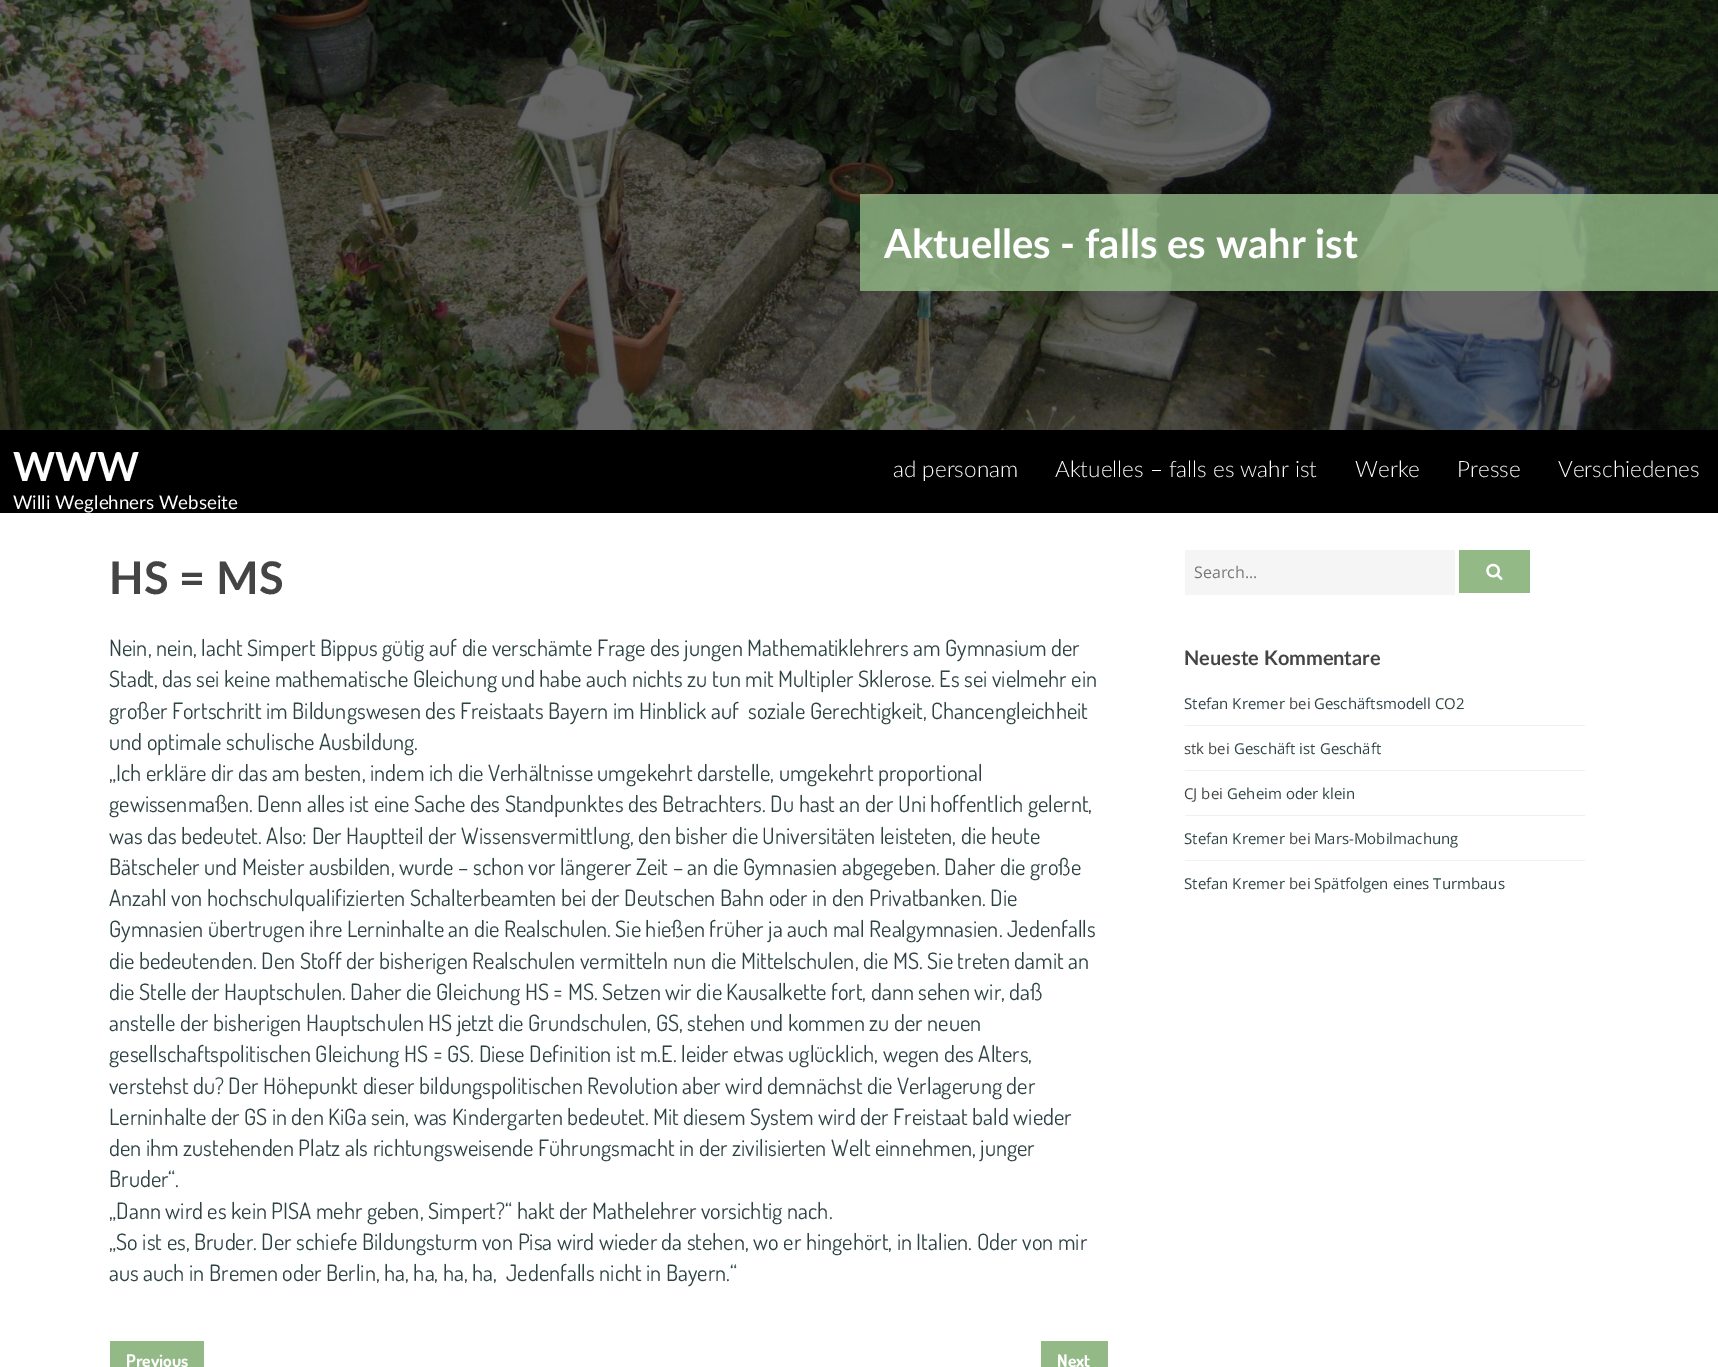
%!PS-Adobe-3.0
%%BoundingBox: 0 0 1718 1367
%%LanguageLevel: 3
%%Pages: 1
%%EndComments
%%BeginProlog
/fn { [ exch dup neg 0 0 3 -1 roll 0 0 ] selectfont } def
/tx { moveto show } def
/bx { rectfill } def
/al { dup .setfillconstantalpha .setstrokeconstantalpha } def
/im { 5 dict begin { /h /w /y /x /name } { exch def } forall
  gsave x y translate w h scale
  w h 8 [w 0 0 h 0 0] name (r) file false 3 colorimage grestore end } def
%%EndProlog
%%BeginSetup
<< /PageSize [1718 1367] /PageUsesTransparency true >> setpagedevice
%%EndSetup
%%Page: 1 1
0 .pushpdf14devicefilter
0 1367 translate 1 -1 scale
4 setmiterlimit
1 setgray
0 0 1718 1367 bx
(image0.raw) 0 0 1718 430 im
0.8 al
0.576 0.725 0.525 setrgbcolor
860 194 858 97 bx
/Lato-Bold 40 fn
1 al
1 setgray
(Aktuelles - falls es wahr ist) 884 258 tx
0 setgray
0 430 1718 83 bx
1 setgray
(WWW) 13 481 tx
/Lato-Regular 18.75 fn
(Willi Weglehners Webseite) 13 509 tx
/Lato-Light 22.5 fn
(ad personam) 893 477 tx
(Aktuelles – falls es wahr ist) 1055 477 tx
(Werke) 1355 477 tx
(Presse) 1457 477 tx
(Verschiedenes) 1558 477 tx
/Lato-Bold 45 fn
0.267 setgray
(HS = MS) 109 594 tx
/Dosis-Regular 22.5 fn
0.184 0.263 0.267 setrgbcolor
(Nein, nein, lacht Simpert Bippus gütig auf die verschämte Frage des jungen Mathematiklehrers am Gymnasium der) 109 656 tx
(Stadt, das sei keine mathematische Gleichung und habe auch nichts zu tun mit Multipler Sklerose. Es sei vielmehr ein) 109 687 tx
(großer Fortschritt im Bildungswesen des Freistaats Bayern im Hinblick auf  soziale Gerechtigkeit, Chancengleichheit) 109 719 tx
(und optimale schulische Ausbildung.) 109 750 tx
(„Ich erkläre dir das am besten, indem ich die Verhältnisse umgekehrt darstelle, umgekehrt proportional) 109 781 tx
(gewissenmaßen. Denn alles ist eine Sache des Standpunktes des Betrachters. Du hast an der Uni hoffentlich gelernt,) 109 812 tx
(was das bedeutet. Also: Der Hauptteil der Wissensvermittlung, den bisher die Universitäten leisteten, die heute) 109 844 tx
(Bätscheler und Meister ausbilden, wurde – schon vor längerer Zeit – an die Gymnasien abgegeben. Daher die große) 109 875 tx
(Anzahl von hochschulqualifizierten Schalterbeamten bei der Deutschen Bahn oder in den Privatbanken. Die) 109 906 tx
(Gymnasien übertrugen ihre Lerninhalte an die Realschulen. Sie hießen früher ja auch mal Realgymnasien. Jedenfalls) 109 937 tx
(die bedeutenden. Den Stoff der bisherigen Realschulen vermitteln nun die Mittelschulen, die MS. Sie treten damit an) 109 969 tx
(die Stelle der Hauptschulen. Daher die Gleichung HS = MS. Setzen wir die Kausalkette fort, dann sehen wir, daß) 109 1000 tx
(anstelle der bisherigen Hauptschulen HS jetzt die Grundschulen, GS, stehen und kommen zu der neuen) 109 1031 tx
(gesellschaftspolitischen Gleichung HS = GS. Diese Definition ist m.E. leider etwas uglücklich, wegen des Alters,) 109 1062 tx
(verstehst du? Der Höhepunkt dieser bildungspolitischen Revolution aber wird demnächst die Verlagerung der) 109 1094 tx
(Lerninhalte der GS in den KiGa sein, was Kindergarten bedeutet. Mit diesem System wird der Freistaat bald wieder) 109 1125 tx
(den ihm zustehenden Platz als richtungsweisende Führungsmacht in der zivilisierten Welt einnehmen, junger) 109 1156 tx
(Bruder“.) 109 1187 tx
(„Dann wird es kein PISA mehr geben, Simpert?“ hakt der Mathelehrer vorsichtig nach.) 109 1219 tx
(„So ist es, Bruder. Der schiefe Bildungsturm von Pisa wird wieder da stehen, wo er hingehört, in Italien. Oder von mir) 109 1250 tx
(aus auch in Bremen oder Berlin, ha, ha, ha, ha,  Jedenfalls nicht in Bayern.“) 109 1281 tx
0.576 0.725 0.525 setrgbcolor
110 1341 94 26 bx
/Dosis-Bold 17.5 fn
1 setgray
(Previous) 126 1367 tx
0.576 0.725 0.525 setrgbcolor
1041 1341 67 26 bx
1 setgray
(Next) 1057 1367 tx
0.965 0.961 0.961 setrgbcolor
1185 550 270 45 bx
/OpenSans-Regular 16 fn
0.459 setgray
(Search...) 1194 578 tx
0.576 0.725 0.525 setrgbcolor
1459 550 71 43 bx
(image1.raw) 1486 563 17 17 im
/Lato-Bold 20 fn
0.267 setgray
(Neueste Kommentare) 1184 665 tx
0.941 setgray
1185 725 400 1 bx
/OpenSans-Regular 15 fn
0.184 0.263 0.267 setrgbcolor
(Stefan Kremer) 1184 709 tx
0.267 setgray
(bei) 1289 709 tx
0.184 0.263 0.267 setrgbcolor
(Geschäftsmodell CO2) 1314 709 tx
0.941 setgray
1185 770 400 1 bx
0.267 setgray
(stk bei) 1184 754 tx
0.184 0.263 0.267 setrgbcolor
(Geschäft ist Geschäft) 1234 754 tx
0.941 setgray
1185 815 400 1 bx
0.267 setgray
(CJ bei) 1184 799 tx
0.184 0.263 0.267 setrgbcolor
(Geheim oder klein) 1227 799 tx
0.941 setgray
1185 860 400 1 bx
0.184 0.263 0.267 setrgbcolor
(Stefan Kremer) 1184 844 tx
0.267 setgray
(bei) 1289 844 tx
0.184 0.263 0.267 setrgbcolor
(Mars-Mobilmachung) 1314 844 tx
(Stefan Kremer) 1184 889 tx
0.267 setgray
(bei) 1289 889 tx
0.184 0.263 0.267 setrgbcolor
(Spätfolgen eines Turmbaus) 1314 889 tx
.poppdf14devicefilter showpage
%%EOF
